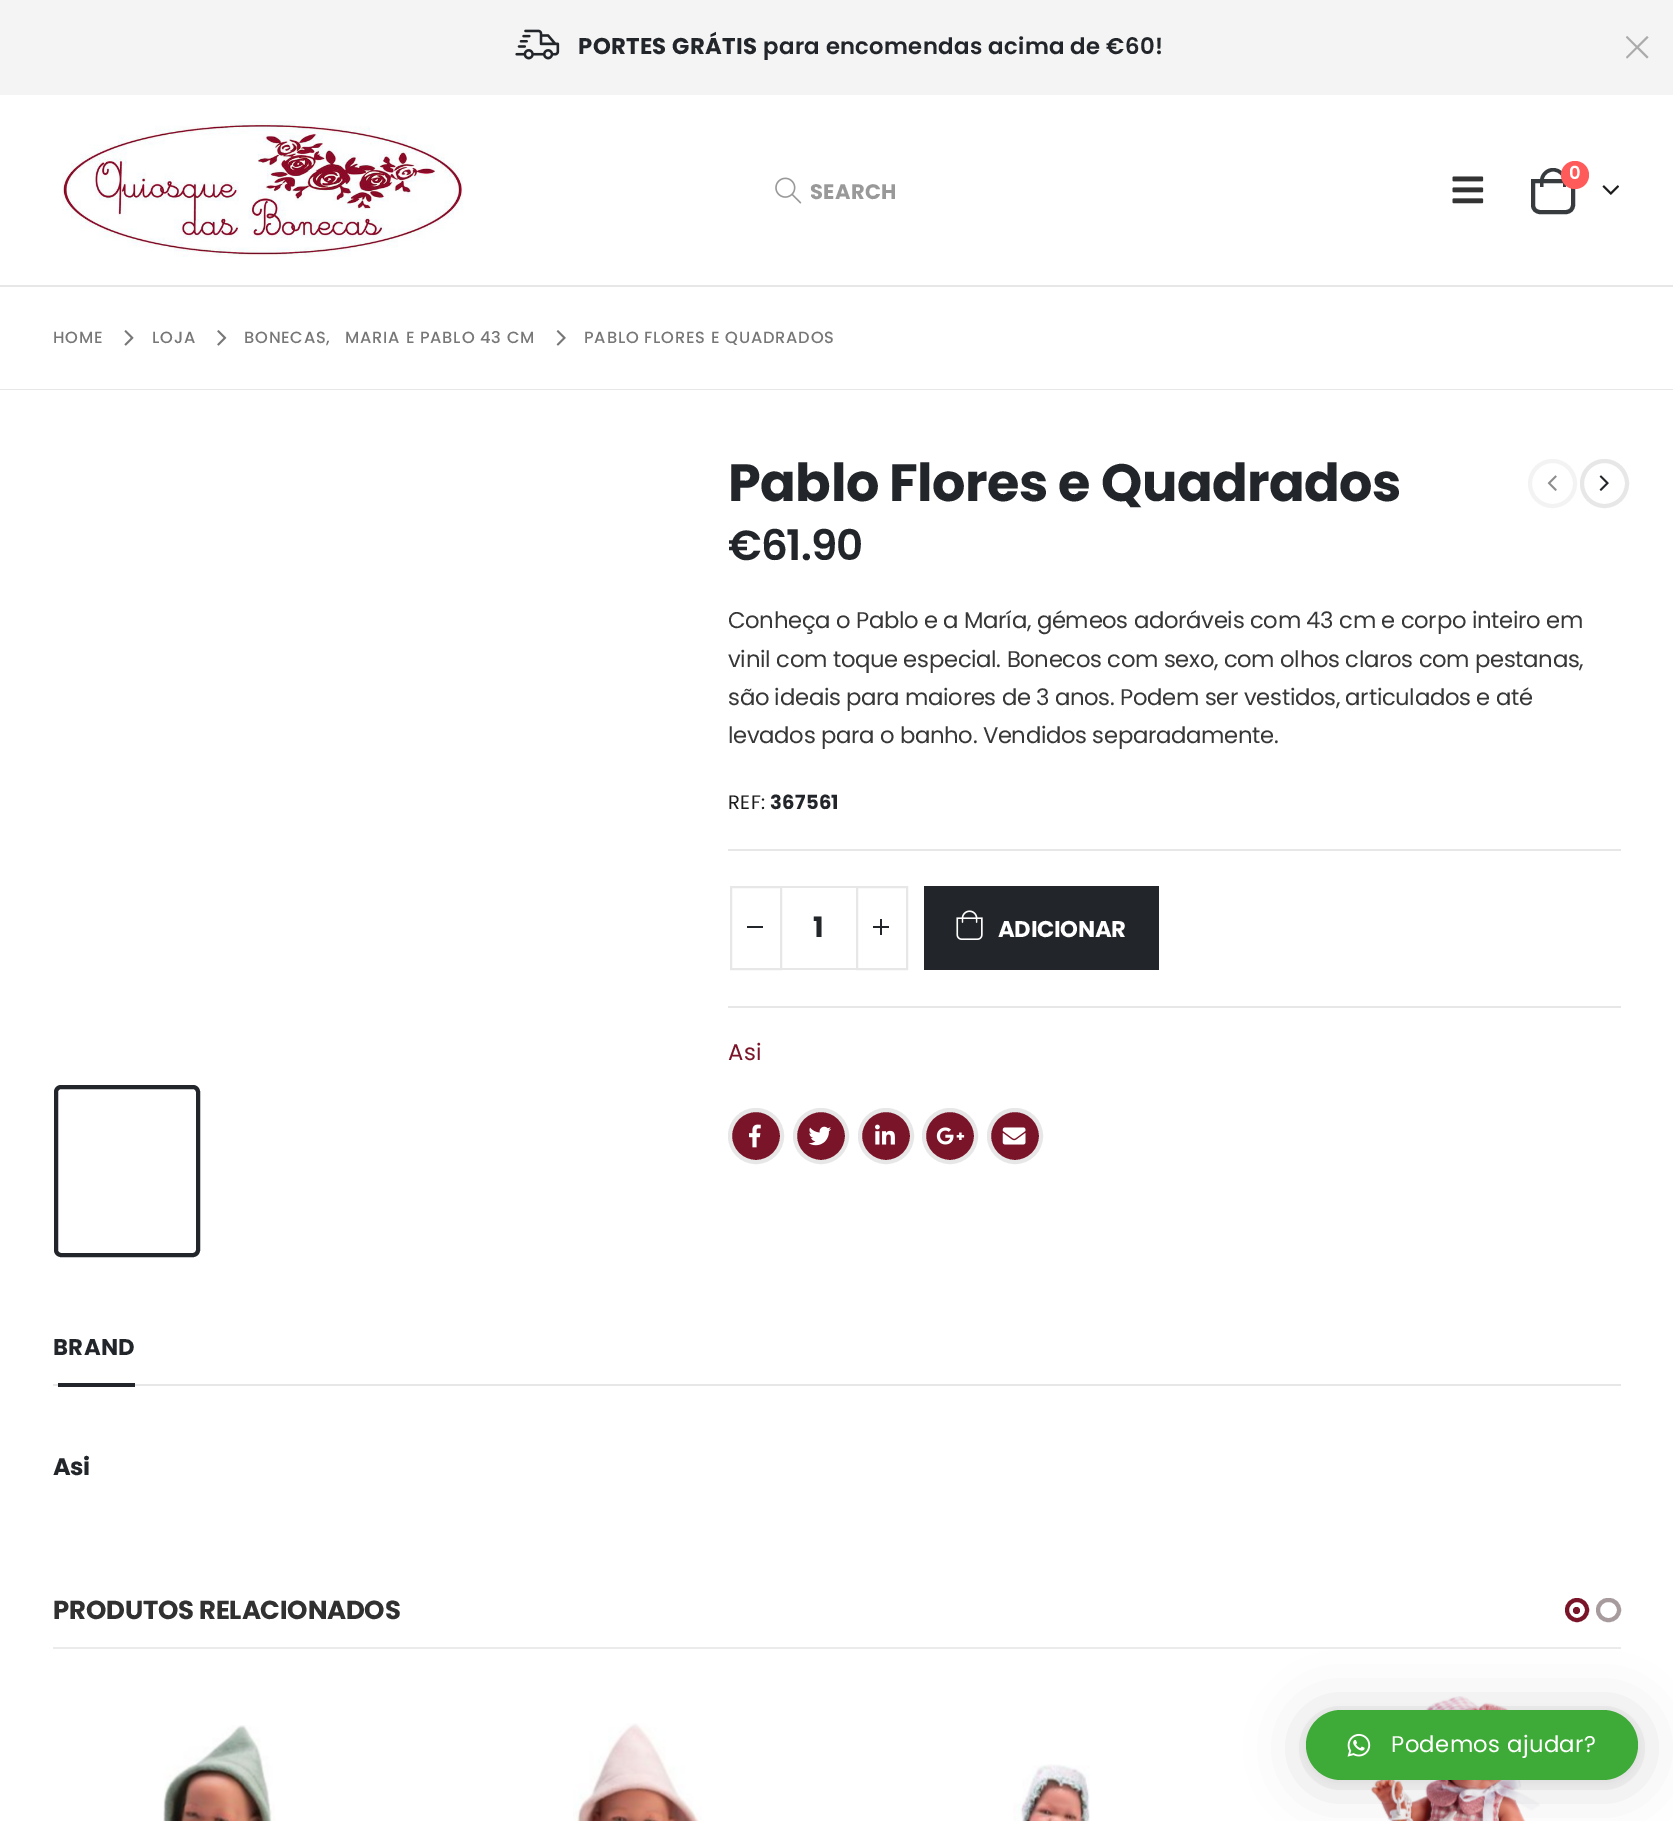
%!PS-Adobe-3.0
%%BoundingBox: 0 0 1673 1821
%%LanguageLevel: 3
%%Pages: 1
%%EndComments
%%BeginProlog
/m { moveto } bind def
/l { lineto } bind def
/c { curveto } bind def
/h { closepath } bind def
/f { fill } bind def
/S { stroke } bind def
/q { gsave } bind def
/Q { grestore } bind def
/w { setlinewidth } bind def
/fn { [ exch dup neg 0 0 3 -1 roll 0 0 ] selectfont } def
/tx { moveto show } def
/bx { rectfill } def
/al { dup .setfillconstantalpha .setstrokeconstantalpha } def
/ci { newpath 0 360 arc closepath } def
/rr { 5 dict begin { /r /h /w /y /x } { exch def } forall
  x r add y moveto x w add y 2 copy h add r arct x w add y h add x 1 index r arct
  x y h add x y r arct x y 2 copy exch w add exch r arct closepath end } def
/sh { 12 dict begin { /a /b /q /h /w /y /x } { exch def } forall gsave /was 0 def
  9 -2 -9 { dup b mul 4 div /e exch def 1 sub .425 mul 2.718 exch exp 1 add a .99 .min exch div /now exch def
    1 1 now sub 1 was sub div sub al /was now def
    w h .min e 2 mul add 0 gt { x e sub y e sub w e 2 mul add h e 2 mul add
      q e add b .6 mul add w h .min 2 div e add .min 0 .max rr fill } if } for grestore end } def
/im { 5 dict begin { /h /w /y /x /name } { exch def } forall
  gsave x y translate w h scale
  w h 8 [w 0 0 h 0 0] name (r) file false 3 colorimage grestore end } def
%%EndProlog
%%BeginSetup
<< /PageSize [1673 1821] /PageUsesTransparency true >> setpagedevice
%%EndSetup
%%Page: 1 1
0 .pushpdf14devicefilter
0 1821 translate 1 -1 scale
4 setmiterlimit
1 setgray
0 0 1673 1821 bx
0.957 setgray
0 0 1673 95 bx
(image0.raw) 515 29 45 31 im
/Poppins-Bold 22.75 fn
0.133 0.145 0.161 setrgbcolor
578 54 m 0.35 0 (PORTES GRÁTIS) ashow
/Poppins-SemiBold 22.75 fn
763 54 m 0.35 0 (para encomendas acima de €60!) ashow
0.671 setgray
1627 36 m 1648.5 57 l 1647 58.5 l 1626 37.5 l h f
1647 36 m 1648.5 37.5 l 1627 58.5 l 1626 57 l h f
(image1.raw) 62 121 401 136 im
0.22 0.231 0.243 setrgbcolor
4 w
1533 181 m 1573 181 l 1573 205 l 1573 209 1570 212 1566 212 c 1540 212 l 1536 212 1533 209 1533 205 c h S
1553 168 m 1560.5 168 1566 174 1566 181 c 1566 187 l 1540 187 l 1540 181 l 1540 174 1546 168 1553 168 c h 1553 171.5 m 1558.5 171.5 1563 176 1563 181 c 1563 187 l 1543.5 187 l 1543.5 181 l 1543.5 176 1548 171.5 1553 171.5 c h eofill
1 0.357 0.357 setrgbcolor
1575 175 14 ci f
/Poppins-SemiBold 18 fn
1 setgray
1569 179 m 0.35 0 (0) ashow
(image2.raw) 1602 185 17 10 im
(image3.raw) 1452 176 32 28 im
(image4.raw) 775 177 27 27 im
/Poppins-Bold 21 fn
0.6 setgray
810 199 m 0.35 0 (SEARCH) ashow
0.906 setgray
0 285 1673 2 bx
0 389 1673 1 bx
/Poppins-Medium 16.25 fn
0.467 setgray
53 343 m 0.8 0 (HOME) ashow
(image5.raw) 124 330 10 16 im
152 343 m 0.8 0 (LOJA) ashow
(image6.raw) 217 330 10 16 im
244 343 m 0.8 0 (BONECAS,) ashow
345 343 m 0.8 0 (MARIA E PABLO 43 CM) ashow
(image7.raw) 556 330 10 16 im
584 343 m 0.8 0 (PABLO FLORES E QUADRADOS) ashow
/Poppins-Bold 52.5 fn
0.133 0.145 0.161 setrgbcolor
728 501 m -0.5 0 (Pablo Flores e Quadrados) ashow
0.953 setgray
1552.5 483.5 22.5 ci S
(image8.raw) 1547 475 10 16 im
0.906 setgray
1604.5 483.5 22.5 ci S
(image9.raw) 1599 475 10 16 im
/Poppins-SemiBold 42 fn
0.133 0.145 0.161 setrgbcolor
728 560 m -1 0 (€61.90) ashow
/Poppins-Regular 22.75 fn
0.216 setgray
728 628 m -0.35 0 (Conheça o Pablo e a María, gémeos adoráveis com 43 cm e corpo inteiro em) ashow
728 667 m -0.35 0 (vinil com toque especial. Bonecos com sexo, com olhos claros com pestanas,) ashow
728 705 m -0.35 0 (são ideais para maiores de 3 anos. Podem ser vestidos, articulados e até) ashow
728 743 m -0.35 0 (levados para o banho. Vendidos separadamente.) ashow
/Poppins-Regular 19.5 fn
0.11 setgray
728 809 m 0.35 0 (REF:) ashow
/Poppins-Bold 19.5 fn
0.133 0.145 0.161 setrgbcolor
770 809 m 0.35 0 (367561) ashow
0.906 setgray
728 849 893 2 bx
728 1006 893 2 bx
781 886 77 2 bx
781 968 77 2 bx
2 w
731 887 50 82 rectstroke
0.133 0.145 0.161 setrgbcolor
747 926 16 2 bx
/Poppins-Bold 28 fn
(1) 813 937 tx
0.906 setgray
857 887 50 82 rectstroke
0.133 0.145 0.161 setrgbcolor
873 926 16 2 bx
880 919 2 16 bx
924 886 235 84 bx
(image10.raw) 956 910 27 30 im
/Poppins-Bold 22.75 fn
1 setgray
998 937 m -0.35 0 (ADICIONAR) ashow
/Poppins-Regular 22.75 fn
0.478 0.078 0.161 setrgbcolor
728 1060 m 0.35 0 (Asi) ashow
756 1136 26 ci q f Q
0.906 setgray
4 w
S
(image11.raw) 749 1124 12 24 im
0.478 0.078 0.161 setrgbcolor
821 1136 26 ci q f Q
0.906 setgray
S
(image12.raw) 808 1126 23 20 im
0.478 0.078 0.161 setrgbcolor
886 1136 26 ci q f Q
0.906 setgray
S
(image13.raw) 875 1124 20 21 im
0.478 0.078 0.161 setrgbcolor
950 1136 26 ci q f Q
0.906 setgray
S
(image14.raw) 936 1127 29 18 im
0.478 0.078 0.161 setrgbcolor
1015 1136 26 ci q f Q
0.906 setgray
S
(image15.raw) 1002 1127 24 18 im
0.133 0.145 0.161 setrgbcolor
56 1087 142 168 5 rr S
0.906 setgray
53 1384 1568 2 bx
0.133 0.145 0.161 setrgbcolor
58 1383 77 4 bx
/Poppins-Bold 22.75 fn
53 1355 m 0.35 0 (BRAND) ashow
/Poppins-Bold 24 fn
53 1475 m -0.5 0 (Asi) ashow
0.478 0.078 0.161 setrgbcolor
1577 1610 10 ci S
1576.5 1610.5 3.5 ci f
0.655 0.608 0.62 setrgbcolor
1598 1600 21 20 10 rr S
(image16.raw) 163 1725 112 96 im
(image17.raw) 573 1723 129 98 im
(image18.raw) 1013 1764 77 57 im
(image19.raw) 1370 1696 170 125 im
0.922 setgray
53 1647 1568 2 bx
/Poppins-Bold 26 fn
0.192 setgray
53 1619 m -0.25 0 (PRODUTOS RELACIONADOS) ashow
0 setgray
1306 1713 332 70 35 28 0.16 sh
1306 1712 332 70 35 5 0.06 sh
0.243 0.667 0.216 setrgbcolor
1306 1710 332 70 35 rr f
(image20.raw) 1347 1733 24 24 im
/Poppins-Regular 22.75 fn
1 setgray
1391 1752 m 0.35 0 (Podemos ajudar?) ashow
.poppdf14devicefilter showpage
%%EOF
